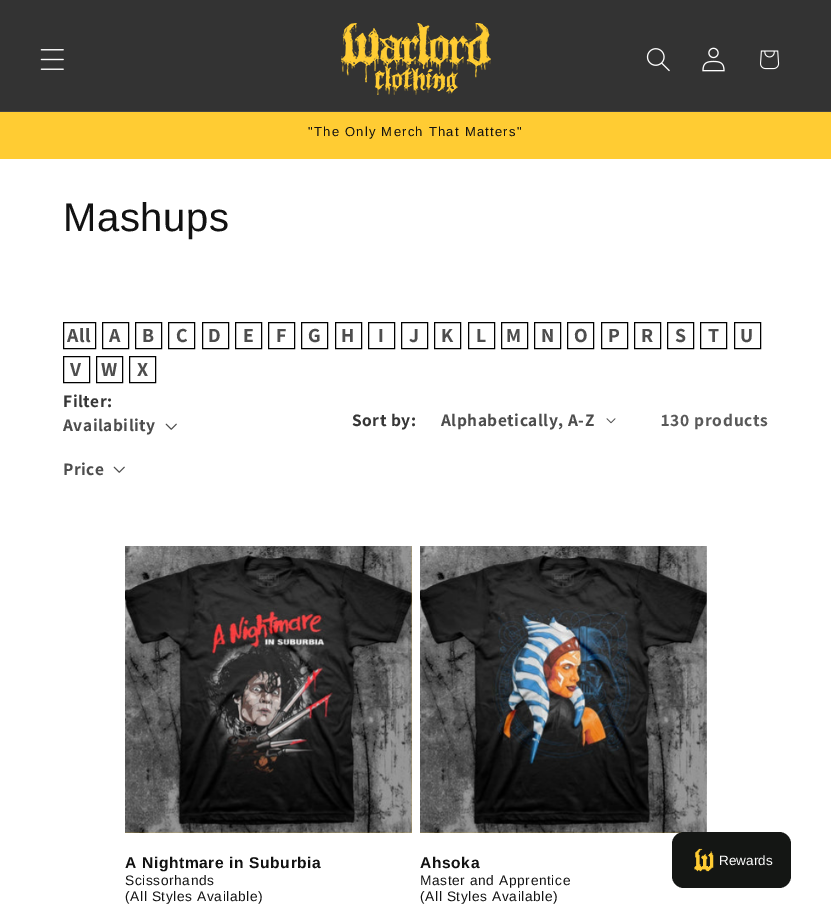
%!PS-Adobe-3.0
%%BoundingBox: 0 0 831 912
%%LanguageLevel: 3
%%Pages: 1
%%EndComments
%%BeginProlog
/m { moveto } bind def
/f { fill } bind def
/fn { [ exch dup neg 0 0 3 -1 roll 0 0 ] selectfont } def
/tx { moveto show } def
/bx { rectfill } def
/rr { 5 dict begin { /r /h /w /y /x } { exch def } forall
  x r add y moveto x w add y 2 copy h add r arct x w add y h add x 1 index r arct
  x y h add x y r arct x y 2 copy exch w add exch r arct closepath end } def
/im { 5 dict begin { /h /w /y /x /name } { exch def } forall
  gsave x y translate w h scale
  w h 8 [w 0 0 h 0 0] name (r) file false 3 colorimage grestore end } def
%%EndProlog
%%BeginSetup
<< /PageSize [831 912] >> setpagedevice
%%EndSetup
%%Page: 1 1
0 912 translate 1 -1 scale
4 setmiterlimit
1 setgray
0 0 831 912 bx
0.2 setgray
0 0 831 111 bx
0.263 setgray
0 111 831 1 bx
(image0.raw) 40 49 24 21 im
(image1.raw) 341 23 150 72 im
(image2.raw) 646 48 24 24 im
(image3.raw) 702 47 23 25 im
(image4.raw) 760 50 20 20 im
1 0.8 0.2 setrgbcolor
0 112 831 47 bx
/LiberationSans-Regular 13 fn
0.071 setgray
308 136 m 1.25 0 ("The Only Merch That Matters") ashow
/LiberationSans-Regular 40 fn
63 231 m 0.6 0 (Mashups) ashow
0 setgray
63.5 322.5 32 26 rectstroke
/Assistant-Bold 20 fn
0.302 setgray
67 342 m 0.75 0 (All) ashow
0 setgray
102.5 322.5 26 26 rectstroke
0.302 setgray
109 342 m 0.75 0 (A) ashow
0 setgray
135.5 322.5 26 26 rectstroke
0.302 setgray
142 342 m 0.75 0 (B) ashow
0 setgray
168.5 322.5 26 26 rectstroke
0.302 setgray
176 342 m 0.75 0 (C) ashow
0 setgray
202.5 322.5 26 26 rectstroke
0.302 setgray
208 342 m 0.75 0 (D) ashow
0 setgray
235.5 322.5 26 26 rectstroke
0.302 setgray
243 342 m 0.75 0 (E) ashow
0 setgray
268.5 322.5 26 26 rectstroke
0.302 setgray
276 342 m 0.75 0 (F) ashow
0 setgray
301.5 322.5 26 26 rectstroke
0.302 setgray
308 342 m 0.75 0 (G) ashow
0 setgray
335.5 322.5 26 26 rectstroke
0.302 setgray
341 342 m 0.75 0 (H) ashow
0 setgray
368.5 322.5 26 26 rectstroke
0.302 setgray
378 342 m 0.75 0 (I) ashow
0 setgray
401.5 322.5 26 26 rectstroke
0.302 setgray
409 342 m 0.75 0 (J) ashow
0 setgray
434.5 322.5 26 26 rectstroke
0.302 setgray
441 342 m 0.75 0 (K) ashow
0 setgray
468.5 322.5 26 26 rectstroke
0.302 setgray
476 342 m 0.75 0 (L) ashow
0 setgray
501.5 322.5 26 26 rectstroke
0.302 setgray
506 342 m 0.75 0 (M) ashow
0 setgray
534.5 322.5 26 26 rectstroke
0.302 setgray
541 342 m 0.75 0 (N) ashow
0 setgray
567.5 322.5 26 26 rectstroke
0.302 setgray
574 342 m 0.75 0 (O) ashow
0 setgray
601.5 322.5 26 26 rectstroke
0.302 setgray
608 342 m 0.75 0 (P) ashow
0 setgray
634.5 322.5 26 26 rectstroke
0.302 setgray
641 342 m 0.75 0 (R) ashow
0 setgray
667.5 322.5 26 26 rectstroke
0.302 setgray
675 342 m 0.75 0 (S) ashow
0 setgray
700.5 322.5 26 26 rectstroke
0.302 setgray
708 342 m 0.75 0 (T) ashow
0 setgray
734.5 322.5 26 26 rectstroke
0.302 setgray
740 342 m 0.75 0 (U) ashow
0 setgray
63.5 356.5 26 26 rectstroke
0.302 setgray
70 376 m 0.75 0 (V) ashow
0 setgray
96.5 356.5 26 26 rectstroke
0.302 setgray
101 376 m 0.75 0 (W) ashow
0 setgray
129.5 356.5 26 26 rectstroke
0.302 setgray
137 376 m 0.75 0 (X) ashow
/Assistant-Bold 17.5 fn
0.212 setgray
63 407 m 0.5 0 (Filter:) ashow
0.302 setgray
63 431 m 0.5 0 (Availability) ashow
(image5.raw) 165 423 12 7 im
63 475 m 0.5 0 (Price) ashow
(image5.raw) 113 466 12 7 im
0.212 setgray
352 426 m 0.5 0 (Sort by:) ashow
0.302 setgray
441 426 m 0.5 0 (Alphabetically, A-Z) ashow
(image6.raw) 606 418 10 6 im
0.349 setgray
661 426 m 0.75 0 (130 products) ashow
1 0.8 0.2 setrgbcolor
125 546 287 287 bx
(image7.raw) 125 546 287 287 im
/LiberationSans-Bold 15.6 fn
0.071 setgray
125 868 m 0.6 0 (A Nightmare in Suburbia) ashow
/LiberationSans-Regular 13.75 fn
125 885 m 0.6 0 (Scissorhands) ashow
125 901 m 0.6 0 (\(All Styles Available\)) ashow
(image8.raw) 420 546 287 287 im
/LiberationSans-Bold 15.6 fn
420 868 m 0.6 0 (Ahsoka) ashow
/LiberationSans-Regular 13.75 fn
420 885 m 0.6 0 (Master and Apprentice) ashow
420 901 m 0.6 0 (\(All Styles Available\)) ashow
0.078 0.086 0.078 setrgbcolor
672 832 119 56 12 rr f
(image9.raw) 694 848 20 24 im
/LiberationSans-Regular 13.5 fn
1 setgray
(Rewards) 719 865 tx
showpage
%%EOF
